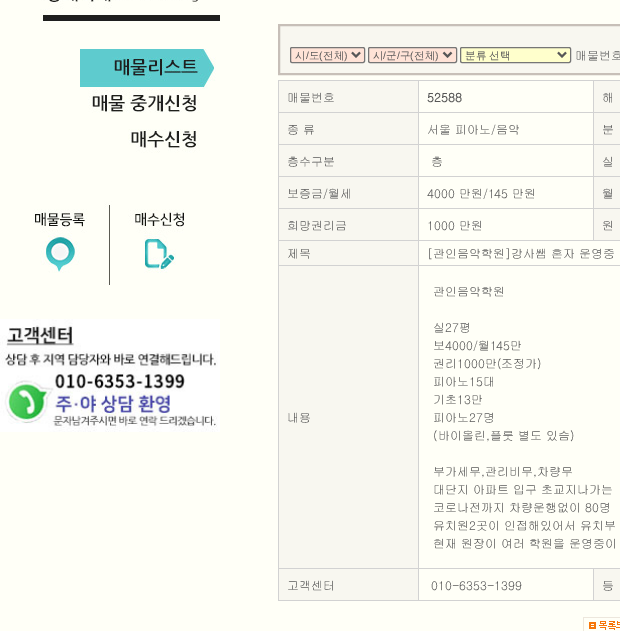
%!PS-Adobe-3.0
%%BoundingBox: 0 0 620 631
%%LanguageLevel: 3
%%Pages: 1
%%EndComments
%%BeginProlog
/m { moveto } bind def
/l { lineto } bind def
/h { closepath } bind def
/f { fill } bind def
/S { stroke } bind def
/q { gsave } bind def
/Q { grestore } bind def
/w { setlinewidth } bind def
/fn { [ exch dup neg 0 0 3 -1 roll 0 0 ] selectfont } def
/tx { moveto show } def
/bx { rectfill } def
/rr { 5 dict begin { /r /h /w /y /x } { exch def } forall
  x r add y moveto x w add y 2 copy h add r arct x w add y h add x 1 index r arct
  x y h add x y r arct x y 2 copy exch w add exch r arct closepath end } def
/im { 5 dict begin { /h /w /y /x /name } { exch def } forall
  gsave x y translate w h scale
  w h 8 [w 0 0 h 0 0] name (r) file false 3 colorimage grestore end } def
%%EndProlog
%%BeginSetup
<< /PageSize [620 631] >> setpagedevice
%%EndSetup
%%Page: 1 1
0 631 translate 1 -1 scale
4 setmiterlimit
1 1 0.969 setrgbcolor
0 0 620 631 bx
(image0.raw) 33 0 187 285 im
(image1.raw) 0 319 220 113 im
0.973 0.969 0.941 setrgbcolor
279 25 m 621 25 l 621 74 l 279 74 l h q f Q
0.78 0.749 0.722 setrgbcolor
2 w
S
1 0.89 0.843 setrgbcolor
290.5 47.5 74 15 1.5 rr q f Q
0.463 setgray
1 w
S
0.341 setgray
2 w
352 52.5 m 356 56.5 l 360 52.5 l S
/WenQuanYiZenHei-Medium 10.5 fn
(시 도) 295 59 tx
/LiberationSans-Regular 10.5 fn
(/) 306 59 tx
(\() 319 59 tx
/WenQuanYiZenHei-Medium 10.5 fn
(전체) 323 59 tx
/LiberationSans-Regular 10.5 fn
(\)) 344 59 tx
1 0.89 0.843 setrgbcolor
368.5 47.5 88 15 1.5 rr q f Q
0.463 setgray
1 w
S
0.341 setgray
2 w
443.5 52.5 m 447.5 56.5 l 451.5 52.5 l S
/WenQuanYiZenHei-Medium 10.5 fn
(시) 373 59 tx
/LiberationSans-Regular 10.5 fn
(/) 383 59 tx
/WenQuanYiZenHei-Medium 10.5 fn
(군 구) 386 59 tx
/LiberationSans-Regular 10.5 fn
(/) 397 59 tx
(\() 410 59 tx
/WenQuanYiZenHei-Medium 10.5 fn
(전체) 414 59 tx
/LiberationSans-Regular 10.5 fn
(\)) 435 59 tx
1 1 0.8 setrgbcolor
460.5 47.5 110 15 1.5 rr q f Q
0.463 setgray
1 w
S
0.341 setgray
2 w
558 52.5 m 562 56.5 l 566 52.5 l S
/WenQuanYiZenHei-Medium 10.5 fn
(분류 선택) 465 59 tx
/Gulim-Regular 12 fn
(매물번호) 575 60 tx
0.824 setgray
278 80 342 1 bx
278 600 342 1 bx
278 80 1 521 bx
0.973 0.969 0.941 setrgbcolor
279 81 139 31 bx
0.341 setgray
(매물번호) 287 102 tx
0.824 setgray
593 112 27 1 bx
593 144 27 1 bx
593 176 27 1 bx
593 208 27 1 bx
418 240 202 1 bx
593 208 1 33 bx
418 208 176 1 bx
593 176 1 33 bx
418 176 176 1 bx
593 144 1 33 bx
418 144 176 1 bx
593 112 1 33 bx
418 112 176 1 bx
418 265 202 1 bx
593 568 27 1 bx
593 568 1 33 bx
418 568 176 1 bx
418 568 1 33 bx
278 568 141 1 bx
418 265 1 304 bx
278 265 141 1 bx
418 240 1 26 bx
278 240 141 1 bx
418 208 1 33 bx
278 208 141 1 bx
418 176 1 33 bx
278 176 141 1 bx
418 144 1 33 bx
278 144 141 1 bx
418 112 1 33 bx
278 112 141 1 bx
418 80 1 33 bx
/Gulim-Bold 12 fn
0.341 setgray
(52588) 427 102 tx
0.973 0.969 0.941 setrgbcolor
594 81 26 31 bx
0.824 setgray
593 80 1 33 bx
/Gulim-Regular 12 fn
0.341 setgray
(해) 602 102 tx
0.973 0.969 0.941 setrgbcolor
279 113 139 31 bx
0.341 setgray
(종 류) 287 134 tx
(서울 피아노/음악) 427 134 tx
0.973 0.969 0.941 setrgbcolor
594 113 26 31 bx
0.341 setgray
(분) 602 134 tx
0.973 0.969 0.941 setrgbcolor
279 145 139 31 bx
0.341 setgray
(층수구분) 287 166 tx
(층) 431 166 tx
0.973 0.969 0.941 setrgbcolor
594 145 26 31 bx
0.341 setgray
(실) 602 166 tx
0.973 0.969 0.941 setrgbcolor
279 177 139 31 bx
0.341 setgray
(보증금/월세) 287 198 tx
(4000 만원/145 만원) 427 198 tx
0.973 0.969 0.941 setrgbcolor
594 177 26 31 bx
0.341 setgray
(월) 602 198 tx
0.973 0.969 0.941 setrgbcolor
279 209 139 31 bx
0.341 setgray
(희망권리금) 287 230 tx
(1000 만원) 427 230 tx
0.973 0.969 0.941 setrgbcolor
594 209 26 31 bx
0.341 setgray
(원) 602 230 tx
0.973 0.969 0.941 setrgbcolor
279 241 139 24 bx
0.341 setgray
(제목) 287 258 tx
([관인음악학원]강사쌤 혼자 운영중) 427 258 tx
0.973 0.969 0.941 setrgbcolor
279 266 139 302 bx
0.341 setgray
(내용) 287 422 tx
(관인음악학원) 433 296 tx
(실27평) 433 332 tx
(보4000/월145만) 433 350 tx
(권리1000만\(조정가\)) 433 368 tx
(피아노15대) 433 386 tx
(기초13만) 433 404 tx
(피아노27명) 433 422 tx
(\(바이올린,플룻 별도 있슴\)) 433 440 tx
(부가세무,관리비무,차량무) 433 476 tx
(대단지 아파트 입구 초교지나가는) 433 494 tx
(코로나전까지 차량운행없이 80명) 433 512 tx
(유치원2곳이 인접해있어서 유치부) 433 530 tx
(현재 원장이 여러 학원을 운영중이) 433 548 tx
0.973 0.969 0.941 setrgbcolor
279 569 139 31 bx
0.341 setgray
(고객센터) 287 590 tx
(010-6353-1399) 431 590 tx
0.973 0.969 0.941 setrgbcolor
594 569 26 31 bx
0.341 setgray
(등) 602 590 tx
(image2.raw) 583 617 37 14 im
showpage
%%EOF
